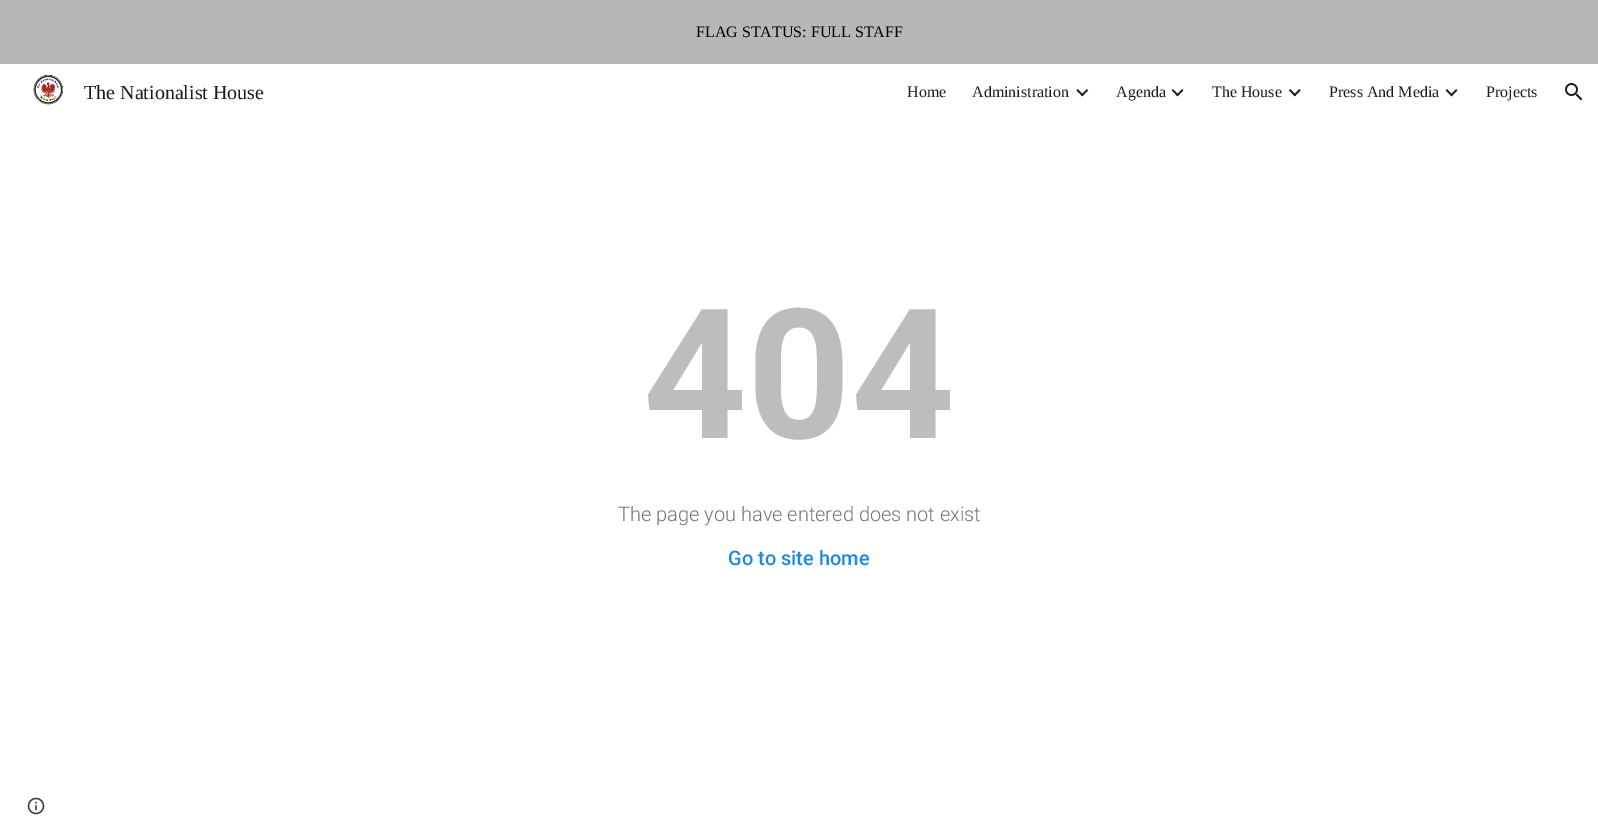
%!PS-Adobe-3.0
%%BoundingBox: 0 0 1598 840
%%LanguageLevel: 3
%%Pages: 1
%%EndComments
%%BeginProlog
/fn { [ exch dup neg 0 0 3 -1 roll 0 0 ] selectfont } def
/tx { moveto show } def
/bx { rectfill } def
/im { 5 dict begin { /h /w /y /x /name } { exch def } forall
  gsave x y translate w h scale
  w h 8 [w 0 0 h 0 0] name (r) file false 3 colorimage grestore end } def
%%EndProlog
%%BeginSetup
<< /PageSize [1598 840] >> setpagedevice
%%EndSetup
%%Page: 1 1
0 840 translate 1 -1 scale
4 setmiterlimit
1 setgray
0 0 1598 840 bx
0.718 setgray
0 0 1598 64 bx
/LiberationSerif-Regular 16 fn
0 setgray
(FLAG STATUS: FULL STAFF) 696 37 tx
(image0.raw) 33 74 30 31 im
/LiberationSerif-Regular 20 fn
0.11 setgray
(The Nationalist House) 84 99 tx
/LiberationSerif-Regular 16 fn
(Home) 907 97 tx
(Administration) 972 97 tx
(image1.raw) 1076 89 13 8 im
(Agenda) 1116 97 tx
(image2.raw) 1171 89 13 8 im
(The House) 1212 97 tx
(image3.raw) 1288 89 13 8 im
(Press And Media) 1329 97 tx
(image4.raw) 1445 89 13 8 im
(Projects) 1486 97 tx
(image5.raw) 1565 83 18 18 im
/Roboto-Bold 181 fn
0.741 setgray
(404) 643 438 tx
/Roboto-Light 20 fn
0.459 setgray
(The page you have entered does not exist) 618 521 tx
/Roboto-Medium 20 fn
0.118 0.533 0.898 setrgbcolor
(Go to site home) 728 565 tx
(image6.raw) 27 797 18 18 im
showpage
%%EOF
